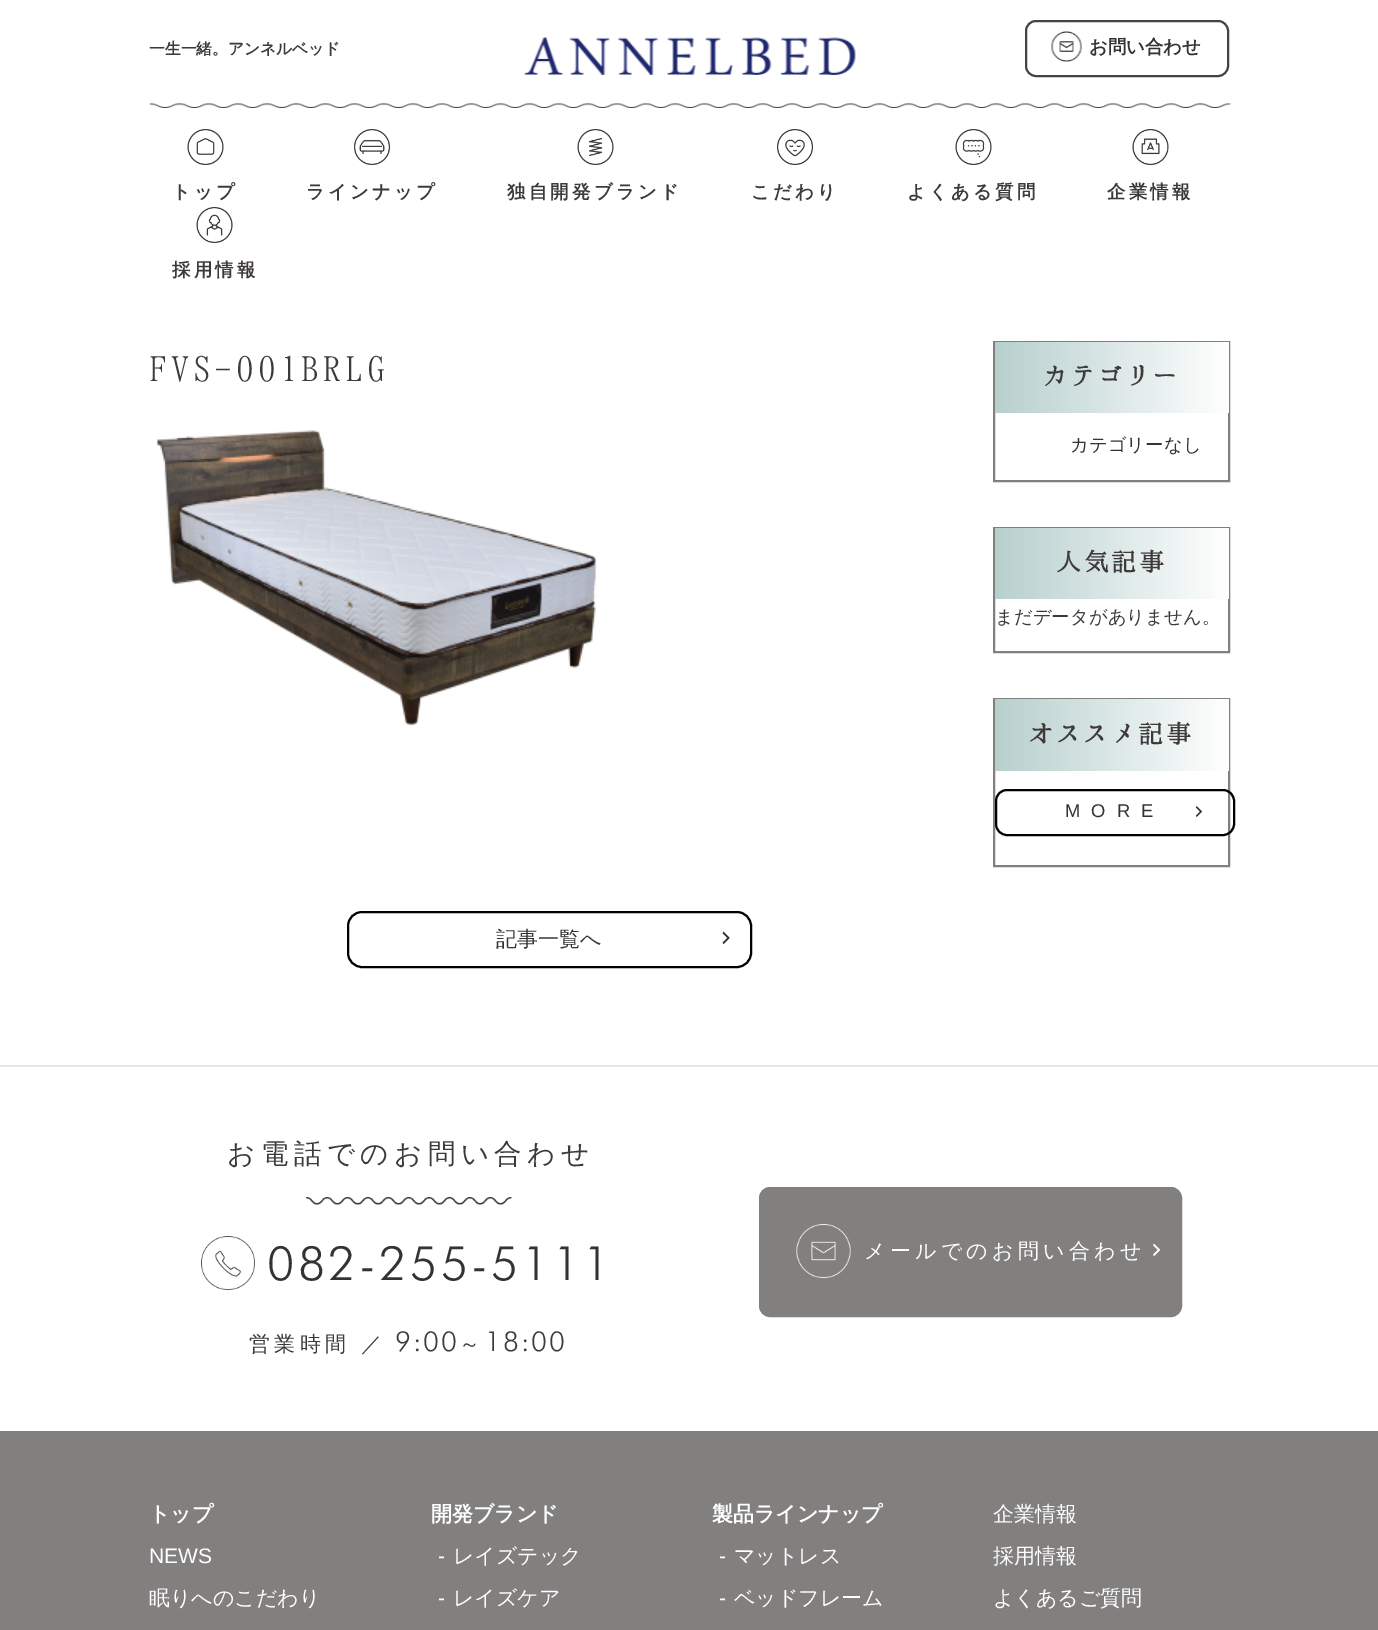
%!PS-Adobe-3.0
%%BoundingBox: 0 0 1378 1630
%%LanguageLevel: 3
%%Pages: 1
%%EndComments
%%BeginProlog
/m { moveto } bind def
/l { lineto } bind def
/h { closepath } bind def
/f { fill } bind def
/S { stroke } bind def
/q { gsave } bind def
/Q { grestore } bind def
/w { setlinewidth } bind def
/fn { [ exch dup neg 0 0 3 -1 roll 0 0 ] selectfont } def
/tx { moveto show } def
/bx { rectfill } def
/rr { 5 dict begin { /r /h /w /y /x } { exch def } forall
  x r add y moveto x w add y 2 copy h add r arct x w add y h add x 1 index r arct
  x y h add x y r arct x y 2 copy exch w add exch r arct closepath end } def
/im { 5 dict begin { /h /w /y /x /name } { exch def } forall
  gsave x y translate w h scale
  w h 8 [w 0 0 h 0 0] name (r) file false 3 colorimage grestore end } def
%%EndProlog
%%BeginSetup
<< /PageSize [1378 1630] >> setpagedevice
%%EndSetup
%%Page: 1 1
0 1630 translate 1 -1 scale
4 setmiterlimit
1 setgray
0 0 1378 1630 bx
/WenQuanYiZenHei-Bold 15.75 fn
0.243 0.227 0.224 setrgbcolor
(一生一緒。アンネルベッド) 149 54 tx
(image0.raw) 524 37 332 38 im
0.267 setgray
2 w
1026 21 202 55 10 rr S
(image1.raw) 1051 31 31 31 im
/WenQuanYiZenHei-Bold 18.4 fn
0.2 setgray
(お問い合わせ) 1089 53 tx
(image2.raw) 149 103 1082 5 im
(image3.raw) 187 129 37 36 im
0.243 0.227 0.224 setrgbcolor
172 198 m 3.25 0 (トップ) ashow
(image4.raw) 354 129 36 36 im
306 198 m 3.25 0 (ラインナップ) ashow
(image5.raw) 577 129 37 36 im
507 198 m 3.25 0 (独自開発ブランド) ashow
(image6.raw) 777 129 36 36 im
751 198 m 3.25 0 (こだわり) ashow
(image7.raw) 955 129 37 36 im
907 198 m 3.25 0 (よくある質問) ashow
(image8.raw) 1132 129 37 36 im
1107 198 m 3.25 0 (企業情報) ashow
(image9.raw) 196 207 37 36 im
172 276 m 3.25 0 (採用情報) ashow
/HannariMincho-Regular 39.5 fn
149 383 m 4 0 (FVS-001BRLG) ashow
(image10.raw) 156 430 441 296 im
0 setgray
348 912 403 55 14 rr S
/WenQuanYiZenHei-Medium 21 fn
0.2 setgray
(記事一覧へ) 496 946 tx
(image11.raw) 722 931 8 14 im
0.51 0.502 0.498 setrgbcolor
994 342 235 139 rectstroke
q 995 342 m 1229 342 l 1229 413 l 995 413 l h clip newpath
<< /ShadingType 2 /ColorSpace /DeviceRGB /Coords [995 377 1229 377] /Extend [true true] /Function << /FunctionType 2 /Domain [0 1] /C0 [0.718 0.816 0.808] /C1 [1 1 1] /N 1 >> >> shfill Q
/HannariMincho-Bold 27.5 fn
0.243 0.227 0.224 setrgbcolor
(カテゴリー) 1042 385 tx
/WenQuanYiZenHei-Medium 18.4 fn
0.2 setgray
(カテゴリーなし) 1070 451 tx
0.51 0.502 0.498 setrgbcolor
994 528 235 124 rectstroke
q 995 528 m 1229 528 l 1229 599 l 995 599 l h clip newpath
<< /ShadingType 2 /ColorSpace /DeviceRGB /Coords [995 563 1229 563] /Extend [true true] /Function << /FunctionType 2 /Domain [0 1] /C0 [0.718 0.816 0.808] /C1 [1 1 1] /N 1 >> >> shfill Q
/HannariMincho-Bold 27.5 fn
0.243 0.227 0.224 setrgbcolor
(人気記事) 1056 571 tx
/WenQuanYiZenHei-Medium 18.4 fn
(まだデータがありません。) 995 623 tx
0.51 0.502 0.498 setrgbcolor
994 699 235 167 rectstroke
q 995 699 m 1229 699 l 1229 771 l 995 771 l h clip newpath
<< /ShadingType 2 /ColorSpace /DeviceRGB /Coords [995 735 1229 735] /Extend [true true] /Function << /FunctionType 2 /Domain [0 1] /C0 [0.718 0.816 0.808] /C1 [1 1 1] /N 1 >> >> shfill Q
/HannariMincho-Bold 27.5 fn
0.243 0.227 0.224 setrgbcolor
(オススメ記事) 1028 743 tx
0 setgray
996 790 238 45 11 rr S
/LiberationSans-Regular 18.4 fn
0.2 setgray
1065 817 m 11 0 (MORE) ashow
(image12.raw) 1195 806 8 12 im
0.906 setgray
0 1065 1378 2 bx
/WenQuanYiZenHei-Medium 27.5 fn
0.243 0.227 0.224 setrgbcolor
227 1163 m 5.5 0 (お電話でのお問い合わせ) ashow
(image13.raw) 306 1197 206 8 im
(image14.raw) 201 1236 54 54 im
/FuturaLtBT-Light 47.25 fn
0.2 setgray
267 1280 m 3.5 0 (082-255-5111) ashow
/WenQuanYiZenHei-Medium 21 fn
0.243 0.227 0.224 setrgbcolor
249 1351 m 4.25 0 (営業時間 ／) ashow
/FuturaLtBT-Light 27.5 fn
395 1351 m 2 0 (9:00) ashow
/WenQuanYiZenHei-Medium 21 fn
459 1351 m 4.25 0 (～) ashow
/FuturaLtBT-Light 27.5 fn
485 1351 m 2 0 (18:00) ashow
0.51 0.502 0.498 setrgbcolor
760 1188 421 128 10 rr q f Q
S
(image15.raw) 796 1224 55 54 im
/WenQuanYiZenHei-Medium 21 fn
1 setgray
864 1258 m 4.25 0 (メールでのお問い合わせ) ashow
(image16.raw) 1153 1243 8 14 im
0.51 0.502 0.498 setrgbcolor
0 1431 1378 199 bx
/WenQuanYiZenHei-Bold 21 fn
1 setgray
(トップ) 149 1521 tx
/LiberationSans-Regular 21 fn
(NEWS) 149 1563 tx
/WenQuanYiZenHei-Medium 21 fn
(眠りへのこだわり) 149 1605 tx
/WenQuanYiZenHei-Bold 21 fn
(開発ブランド) 431 1521 tx
/LiberationSans-Regular 21 fn
(-) 438 1563 tx
/WenQuanYiZenHei-Medium 21 fn
(レイズテック) 453 1563 tx
/LiberationSans-Regular 21 fn
(-) 438 1605 tx
/WenQuanYiZenHei-Medium 21 fn
(レイズケア) 453 1605 tx
/WenQuanYiZenHei-Bold 21 fn
(製品ラインナップ) 712 1521 tx
/LiberationSans-Regular 21 fn
(-) 719 1563 tx
/WenQuanYiZenHei-Medium 21 fn
(マットレス) 734 1563 tx
/LiberationSans-Regular 21 fn
(-) 719 1605 tx
/WenQuanYiZenHei-Medium 21 fn
(ベッドフレーム) 734 1605 tx
(企業情報) 993 1521 tx
(採用情報) 993 1563 tx
(よくあるご質問) 993 1605 tx
showpage
%%EOF
